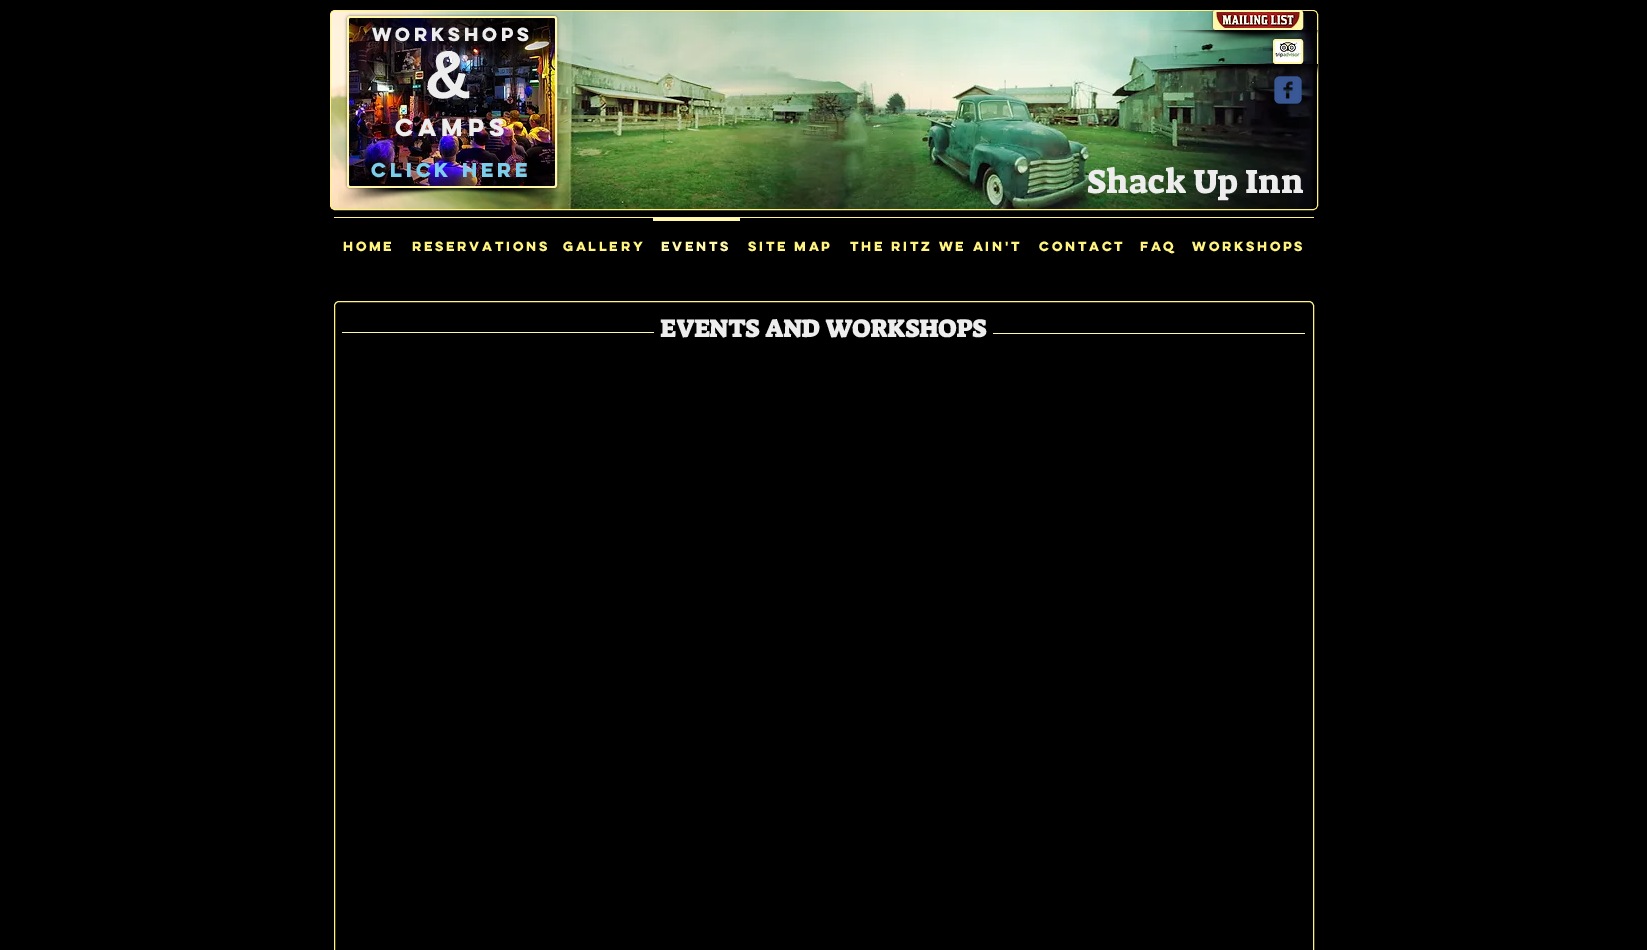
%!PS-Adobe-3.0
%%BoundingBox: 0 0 1647 950
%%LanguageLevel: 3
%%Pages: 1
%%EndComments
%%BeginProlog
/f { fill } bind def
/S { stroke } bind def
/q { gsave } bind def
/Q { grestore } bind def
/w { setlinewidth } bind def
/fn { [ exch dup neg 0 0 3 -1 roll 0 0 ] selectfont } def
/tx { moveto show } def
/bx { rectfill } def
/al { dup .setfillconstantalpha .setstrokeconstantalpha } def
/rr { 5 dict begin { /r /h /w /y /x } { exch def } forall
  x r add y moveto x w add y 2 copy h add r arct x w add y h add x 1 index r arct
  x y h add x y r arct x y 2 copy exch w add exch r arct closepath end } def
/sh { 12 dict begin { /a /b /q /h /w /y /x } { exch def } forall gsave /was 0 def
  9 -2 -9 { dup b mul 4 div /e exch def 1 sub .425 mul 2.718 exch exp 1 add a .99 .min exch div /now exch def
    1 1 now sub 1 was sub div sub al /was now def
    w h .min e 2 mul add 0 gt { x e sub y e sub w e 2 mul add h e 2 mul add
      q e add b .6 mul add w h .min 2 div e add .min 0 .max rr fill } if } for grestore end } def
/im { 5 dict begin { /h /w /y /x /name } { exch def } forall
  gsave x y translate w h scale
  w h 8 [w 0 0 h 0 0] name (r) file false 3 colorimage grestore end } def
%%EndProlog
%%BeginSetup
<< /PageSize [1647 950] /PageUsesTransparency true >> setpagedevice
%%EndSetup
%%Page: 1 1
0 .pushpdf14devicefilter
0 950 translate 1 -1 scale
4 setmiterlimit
0 setgray
0 0 1647 950 bx
1 0.957 0.498 setrgbcolor
330.5 10.5 987 199 4.5 rr S
(image3.raw) 331 11 986 198 im
0 setgray
1213 10 90 20 3 1.5 0.5 sh
1 0.969 0.667 setrgbcolor
1214 11 88 18 2 rr q f Q
2 w
S
(image0.raw) 1216 12 84 16 im
(image2.raw) 1204 30 114 17 im
(image1.raw) 1158 30 145 14 im
0 setgray
347 16 210 172 3 1.5 0.5 sh
1 0.969 0.667 setrgbcolor
348 17 208 170 2 rr q f Q
S
(image4.raw) 349 18 206 168 im
(image5.raw) 338 188 144 18 im
(image6.raw) 434 188 129 16 im
/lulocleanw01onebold-Bold 17 fn
0.929 setgray
(Workshops) 372 41 tx
0 setgray
1273 39 30 25 3 1.5 0.5 sh
1 0.969 0.667 setrgbcolor
1274 40 28 23 2 rr q f Q
S
(image7.raw) 1275 41 26 21 im
(image9.raw) 1273 64 45 11 im
(image8.raw) 1158 64 134 10 im
/LiberationMono-Bold 71 fn
0.929 setgray
(&) 427 98 tx
(image10.raw) 1274 76 28 28 im
/lulocleanw01onebold-Bold 22 fn
(Camps) 395 136 tx
/lulocleanw01onebold-Bold 18 fn
0.486 0.804 0.918 setrgbcolor
(Click Here) 371 177 tx
/SuezOne-Regular 34 fn
0.929 setgray
(Shack Up Inn) 1087 193 tx
1 0.957 0.498 setrgbcolor
334 217 319 1 bx
/lulocleanw01onebold-Bold 12 fn
(Home) 343 251 tx
(Reservations) 412 251 tx
(Gallery) 563 251 tx
1 0.969 0.667 setrgbcolor
653 217 87 4 bx
(Events) 661 251 tx
1 0.957 0.498 setrgbcolor
740 217 574 1 bx
(Site Map) 748 251 tx
(The Ritz We Ain't) 850 251 tx
(Contact) 1039 251 tx
(FAQ) 1140 251 tx
(Workshops) 1192 251 tx
1 w
334.5 301.5 979 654 4.5 rr S
1 0.969 0.667 setrgbcolor
342 332 312 1 bx
/SuezOne-Bold 25 fn
0.929 setgray
(EVENTS AND WORKSHOPS) 660 337 tx
1 0.969 0.667 setrgbcolor
993 333 312 1 bx
.poppdf14devicefilter showpage
%%EOF
